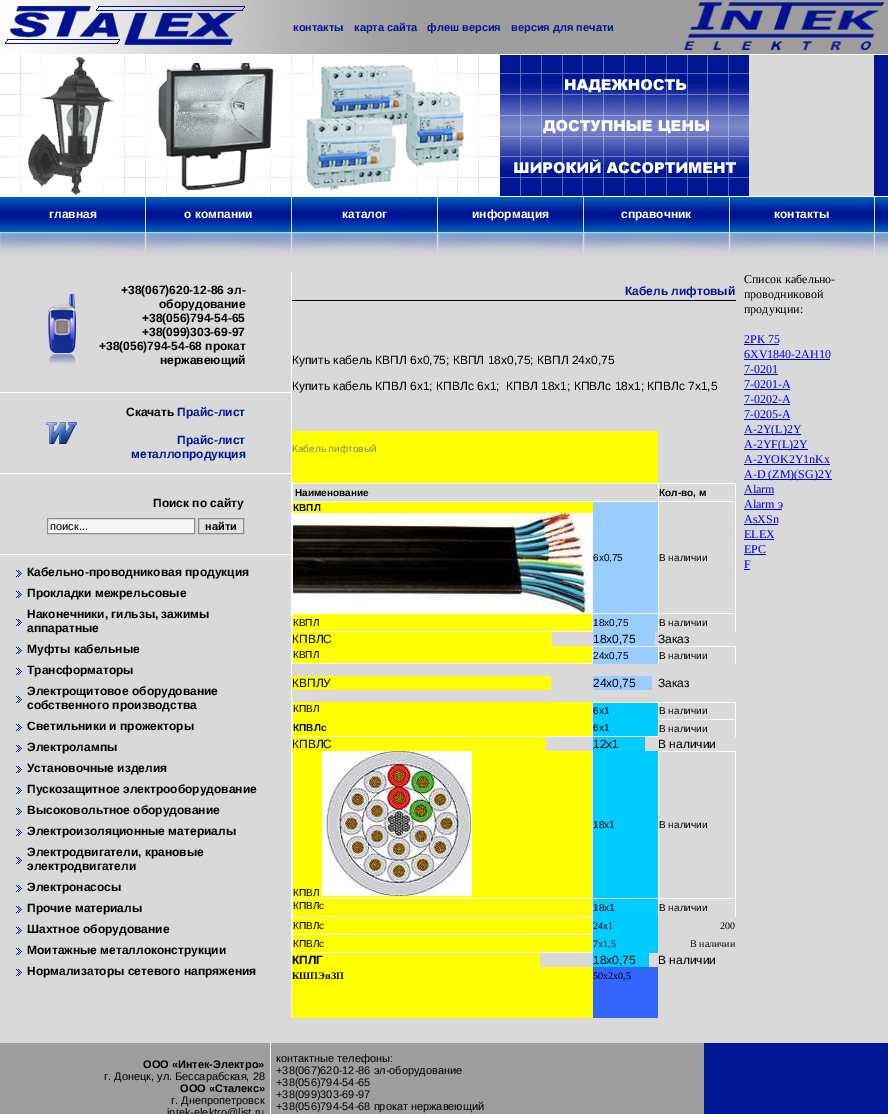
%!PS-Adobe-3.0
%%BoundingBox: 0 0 888 1114
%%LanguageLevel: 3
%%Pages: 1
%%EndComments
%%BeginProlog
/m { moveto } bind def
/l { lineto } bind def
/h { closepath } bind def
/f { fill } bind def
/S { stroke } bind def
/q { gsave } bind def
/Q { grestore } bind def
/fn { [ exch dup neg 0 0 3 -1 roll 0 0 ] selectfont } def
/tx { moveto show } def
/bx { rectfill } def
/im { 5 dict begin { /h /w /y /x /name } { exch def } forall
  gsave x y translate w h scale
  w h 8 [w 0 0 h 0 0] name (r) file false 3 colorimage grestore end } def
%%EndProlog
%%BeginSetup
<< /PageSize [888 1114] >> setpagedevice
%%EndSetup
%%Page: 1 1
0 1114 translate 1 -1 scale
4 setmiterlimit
0.851 setgray
0 0 888 1114 bx
(image0.raw) 0 0 251 54 im
(image1.raw) 251 0 425 54 im
/LiberationSans-Bold 11 fn
0 0.09 0.58 setrgbcolor
(контакты) 293 31 tx
(карта сайта) 354 31 tx
(флеш версия) 427 31 tx
(версия для печати) 511 31 tx
0.62 setgray
887 0 1 54 bx
(image2.raw) 676 0 211 54 im
1 setgray
0 54 888 1 bx
(image3.raw) 0 55 749 141 im
0 0.09 0.576 setrgbcolor
874 55 14 141 bx
1 setgray
0 196 888 1 bx
(image4.raw) 0 197 145 59 im
(image4.raw) 146 197 145 59 im
(image4.raw) 292 197 145 59 im
(image4.raw) 438 197 145 59 im
(image4.raw) 584 197 145 59 im
(image5.raw) 730 197 144 59 im
(image6.raw) 875 197 13 59 im
(image7.raw) 48 294 28 72 im
/LiberationSans-Bold 12 fn
0 setgray
(+38\(067\)620-12-86 эл-) 121 294 tx
(оборудование) 159 308 tx
(+38\(056\)794-54-65) 142 322 tx
(+38\(099\)303-69-97) 142 336 tx
(+38\(056\)794-54-68 прокат) 99 350 tx
(нержавеющий) 160 364 tx
1 setgray
0 392 291 1 bx
(image8.raw) 46 422 31 22 im
0 setgray
(Скачать) 126 416 tx
0 0.09 0.58 setrgbcolor
(Прайс-лист) 177 416 tx
(Прайс-лист) 177 444 tx
(металлопродукция) 131 458 tx
1 setgray
0 473 291 1 bx
0 setgray
(Поиск по сайту) 153 507 tx
0.965 setgray
47.5 518.5 m 194.5 518.5 l 194.5 533.5 l 47.5 533.5 l h q f Q
0.549 setgray
S
/LiberationSans-Regular 11 fn
0 setgray
(поиск...) 50 530 tx
0.878 0.875 0.89 setrgbcolor
198.5 518.5 m 243.5 518.5 l 243.5 533.5 l 198.5 533.5 l h q f Q
0.549 setgray
S
/LiberationSans-Bold 11 fn
0 setgray
(найти) 205 530 tx
1 setgray
0 554 291 1 bx
(image9.raw) 16 570 6 7 im
/LiberationSans-Bold 12 fn
0 setgray
(Кабельно-проводниковая продукция) 27 576 tx
(image9.raw) 16 591 6 7 im
(Прокладки межрельсовые) 27 597 tx
(image9.raw) 16 619 6 7 im
(Наконечники, гильзы, зажимы) 27 618 tx
(аппаратные) 27 632 tx
(image9.raw) 16 647 6 7 im
(Муфты кабельные) 27 653 tx
(image9.raw) 16 668 6 7 im
(Трансформаторы) 27 674 tx
(image9.raw) 16 696 6 7 im
(Электрощитовое оборудование) 27 695 tx
(собственного производства) 27 709 tx
(image9.raw) 16 724 6 7 im
(Светильники и прожекторы) 27 730 tx
(image9.raw) 16 745 6 7 im
(Электролампы) 27 751 tx
(image9.raw) 16 766 6 7 im
(Установочные изделия) 27 772 tx
(image9.raw) 16 787 6 7 im
(Пускозащитное электрооборудование) 27 793 tx
(image9.raw) 16 808 6 7 im
(Высоковольтное оборудование) 27 814 tx
(image9.raw) 16 829 6 7 im
(Электроизоляционные материалы) 27 835 tx
(image9.raw) 16 857 6 7 im
(Электродвигатели, крановые) 27 856 tx
(электродвигатели) 27 870 tx
(image9.raw) 16 885 6 7 im
(Электронасосы) 27 891 tx
(image9.raw) 16 906 6 7 im
(Прочие материалы) 27 912 tx
(image9.raw) 16 927 6 7 im
(Шахтное оборудование) 27 933 tx
(image9.raw) 16 948 6 7 im
(Моитажные металлоконструкции) 27 954 tx
(image9.raw) 16 969 6 7 im
(Нормализаторы сетевого напряжения) 27 975 tx
1 setgray
291 272 1 746 bx
0 0.09 0.58 setrgbcolor
(Кабель лифтовый) 625 295 tx
0 setgray
292 300 444 1 bx
/LiberationSans-Regular 12 fn
(Купить кабель КВПЛ 6х0,75; КВПЛ 18х0,75; КВПЛ 24х0,75) 292 364 tx
(Купить кабель КПВЛ 6х1; КПВЛс 6х1;  КПВЛ 18х1; КПВЛс 18х1; КПВЛс 7х1,5) 292 390 tx
1 1 0 setrgbcolor
292 431 366 35 bx
/LiberationSans-Regular 10 fn
0.502 setgray
(Кабель лифтовый) 292 452 tx
1 1 0 setrgbcolor
292 466 366 17 bx
1 setgray
292 483 444 1 bx
292 613 444 1 bx
735 501 1 131 bx
735 483 1 19 bx
658 501 1 131 bx
658 501 78 1 bx
658 483 1 19 bx
592 613 1 19 bx
292 631 301 1 bx
292 501 1 131 bx
292 501 367 1 bx
292 483 1 19 bx
/LiberationSans-Bold 10 fn
0 setgray
(Наименование) 295 496 tx
(Кол-во, м) 659 496 tx
1 1 0 setrgbcolor
293 502 300 11 bx
0 setgray
(КВПЛ) 293 511 tx
(image10.raw) 293 513 300 100 im
0.6 0.8 1 setrgbcolor
593 502 65 111 bx
/LiberationSans-Regular 10 fn
0 setgray
(6x0,75) 593 561 tx
(В наличии) 659 561 tx
1 1 0 setrgbcolor
293 614 299 17 bx
0 setgray
(КВПЛ) 293 626 tx
0.6 0.8 1 setrgbcolor
593 614 65 18 bx
0 setgray
(18x0,75) 593 626 tx
(В наличии) 659 626 tx
1 1 0 setrgbcolor
292 632 260 14 bx
/LiberationSans-Regular 12 fn
0 setgray
(КПВЛС) 292 643 tx
0.6 0.8 1 setrgbcolor
593 632 62 14 bx
0 setgray
(18х0,75) 593 643 tx
(Заказ) 658 643 tx
1 1 0 setrgbcolor
293 646 299 17 bx
1 setgray
592 646 144 1 bx
592 646 1 18 bx
292 663 301 1 bx
292 646 1 18 bx
/LiberationSans-Regular 10 fn
0 setgray
(КВПЛ) 293 658 tx
0.6 0.8 1 setrgbcolor
593 647 65 17 bx
1 setgray
658 646 1 18 bx
0 setgray
(24x0,75) 593 659 tx
1 setgray
735 646 1 18 bx
0 setgray
(В наличии) 659 659 tx
1 1 0 setrgbcolor
292 676 259 14 bx
/LiberationSans-Regular 12 fn
0 setgray
(КВПЛУ) 292 687 tx
0.6 0.8 1 setrgbcolor
593 676 59 14 bx
0 setgray
(24х0,75) 593 687 tx
(Заказ) 658 687 tx
1 1 0 setrgbcolor
293 702 299 34 bx
1 setgray
592 702 144 1 bx
658 719 78 1 bx
658 719 1 18 bx
592 736 67 1 bx
592 719 1 18 bx
592 702 1 18 bx
/LiberationSans-Regular 10 fn
0 setgray
(КПВЛ) 293 712 tx
0 0.8 1 setrgbcolor
593 703 65 33 bx
1 setgray
658 702 1 18 bx
0 setgray
(6х1) 593 714 tx
1 setgray
735 719 1 18 bx
735 702 1 18 bx
0 setgray
(В наличии) 659 714 tx
1 setgray
292 736 301 1 bx
292 702 1 35 bx
/LiberationSans-Bold 10 fn
0 setgray
(КПВЛс) 293 731 tx
/LiberationSans-Regular 10 fn
(6х1) 593 731 tx
(В наличии) 659 732 tx
1 1 0 setrgbcolor
292 737 254 14 bx
/LiberationSans-Regular 12 fn
0 setgray
(КПВЛС) 292 748 tx
0 0.8 1 setrgbcolor
593 737 52 14 bx
0 setgray
(12х1) 593 748 tx
(В наличии) 658 748 tx
0 0.8 1 setrgbcolor
593 751 65 147 bx
1 setgray
658 751 78 1 bx
735 898 1 19 bx
735 751 1 148 bx
658 898 1 19 bx
658 898 78 1 bx
658 751 1 148 bx
292 916 301 1 bx
592 934 1 19 bx
592 898 1 37 bx
592 898 67 1 bx
/LiberationSans-Regular 10 fn
0 setgray
(18х1) 593 828 tx
(В наличии) 659 828 tx
1 1 0 setrgbcolor
293 751 299 147 bx
1 setgray
592 751 1 148 bx
292 952 301 1 bx
292 934 1 19 bx
292 934 301 1 bx
292 898 1 37 bx
292 898 301 1 bx
292 751 1 148 bx
0 setgray
(КПВЛ) 293 896 tx
(image11.raw) 322 751 150 145 im
1 1 0 setrgbcolor
293 899 299 17 bx
0 setgray
(КПВЛс) 293 909 tx
0 0.8 1 setrgbcolor
593 899 65 54 bx
0 setgray
(18х1) 593 911 tx
(В наличии) 659 911 tx
1 1 0 setrgbcolor
293 917 299 17 bx
0 setgray
(КПВЛc) 293 929 tx
/LiberationSerif-Regular 10 fn
(24х1) 593 929 tx
(200) 720 929 tx
1 1 0 setrgbcolor
293 935 299 17 bx
/LiberationSans-Regular 10 fn
0 setgray
(КПВЛс) 293 947 tx
/LiberationSerif-Regular 10 fn
(7x1,5) 593 947 tx
(В наличии) 690 947 tx
1 1 0 setrgbcolor
292 953 248 14 bx
/LiberationSans-Bold 12 fn
0 setgray
(КПЛГ) 292 964 tx
0 0.8 1 setrgbcolor
593 953 56 14 bx
/LiberationSans-Regular 12 fn
0 setgray
(18х0,75) 593 964 tx
(В наличии) 658 964 tx
1 1 0 setrgbcolor
292 967 301 51 bx
/LiberationSerif-Bold 10 fn
0 setgray
(КШПЭпЗП) 292 979 tx
0.2 0.4 1 setrgbcolor
593 967 65 51 bx
/LiberationSerif-Regular 10 fn
0 setgray
(50х2х0,5) 593 979 tx
/LiberationSerif-Regular 12 fn
(Список кабельно-) 744 283 tx
(проводниковой) 744 298 tx
(продукции:) 744 313 tx
0 0 0.933 setrgbcolor
(2РК 75) 744 343 tx
744 344 35 1 bx
(6XV1840-2AH10) 744 358 tx
744 359 86 1 bx
(7-0201) 744 373 tx
744 374 34 1 bx
(7-0201-А) 744 388 tx
744 389 46 1 bx
(7-0202-А) 744 403 tx
744 404 46 1 bx
(7-0205-А) 744 418 tx
744 419 46 1 bx
744 434 57 1 bx
(A-2Y\(L\)2Y) 744 433 tx
744 449 64 1 bx
(A-2YF\(L\)2Y) 744 448 tx
(A-2YOK2Y1nKx) 744 463 tx
744 464 86 1 bx
744 479 88 1 bx
(A-D \(ZM\)\(SG\)2Y) 744 478 tx
(Alarm) 744 493 tx
744 494 30 1 bx
(Alarm э) 744 508 tx
744 509 38 1 bx
(AsXSn) 744 523 tx
744 524 34 1 bx
(ELEX) 744 538 tx
744 539 30 1 bx
(EPC) 744 553 tx
744 554 22 1 bx
(F) 744 568 tx
744 569 6 1 bx
0.62 setgray
0 1043 704 71 bx
/LiberationSans-Bold 11 fn
0 setgray
(ООО «Интек-Электро») 143 1068 tx
/LiberationSans-Regular 11 fn
(г. Донецк, ул. Бессарабская, 28) 104 1080 tx
/LiberationSans-Bold 11 fn
(ООО «Сталекс») 180 1092 tx
/LiberationSans-Regular 11 fn
(г. Днепропетровск) 171 1104 tx
(intek-elektro@list.ru) 167 1116 tx
1 setgray
270 1043 1 71 bx
0 setgray
(контактные телефоны:) 276 1062 tx
(+38\(067\)620-12-86 эл-оборудование) 276 1074 tx
(+38\(056\)794-54-65) 276 1086 tx
(+38\(099\)303-69-97) 276 1098 tx
(+38\(056\)794-54-68 прокат нержавеющий) 276 1110 tx
0 0.09 0.58 setrgbcolor
704 1043 184 71 bx
/LiberationSans-Bold 12 fn
1 setgray
(главная) 49 218 tx
(о компании) 184 218 tx
(каталог) 342 218 tx
(информация) 472 218 tx
(справочник) 621 218 tx
(контакты) 774 218 tx
showpage
%%EOF
